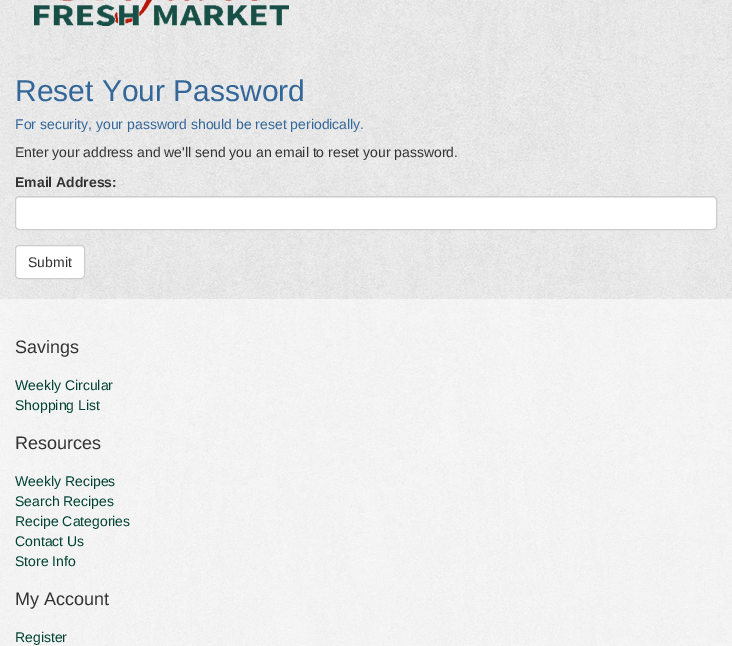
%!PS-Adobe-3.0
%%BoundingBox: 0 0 732 646
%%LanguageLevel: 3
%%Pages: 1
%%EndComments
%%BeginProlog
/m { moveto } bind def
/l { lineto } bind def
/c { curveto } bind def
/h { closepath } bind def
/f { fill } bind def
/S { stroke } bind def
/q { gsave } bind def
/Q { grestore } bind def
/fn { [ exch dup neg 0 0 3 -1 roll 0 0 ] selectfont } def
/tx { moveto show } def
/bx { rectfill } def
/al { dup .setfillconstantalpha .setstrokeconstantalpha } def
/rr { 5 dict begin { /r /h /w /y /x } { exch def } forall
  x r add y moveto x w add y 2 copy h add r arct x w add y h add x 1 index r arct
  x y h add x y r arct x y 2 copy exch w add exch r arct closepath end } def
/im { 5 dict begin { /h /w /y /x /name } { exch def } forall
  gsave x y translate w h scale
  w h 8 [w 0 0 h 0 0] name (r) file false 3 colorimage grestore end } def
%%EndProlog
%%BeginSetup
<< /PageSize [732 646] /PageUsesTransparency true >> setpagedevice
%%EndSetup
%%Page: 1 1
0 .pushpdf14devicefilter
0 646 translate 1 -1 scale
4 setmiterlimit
1 setgray
0 0 732 646 bx
(image0.raw) 0 0 732 646 im
(image1.raw) 34 0 255 26 im
/LiberationSans-Regular 30 fn
0.2 0.4 0.6 setrgbcolor
(Reset Your Password) 15 101 tx
/LiberationSans-Regular 14 fn
(For security, your password should be reset periodically.) 15 129 tx
0.2 setgray
(Enter your address and we'll send you an email to reset your password.) 15 157 tx
/LiberationSans-Bold 14 fn
(Email Address:) 15 187 tx
1 setgray
15 196 702 34 4 rr f
0.925 setgray
19 198 m 713 198 l 715 198 716 199 716 201 c 716 199 715 197 713 197 c 19 197 l 17 197 16 199 16 201 c 16 199 17 198 19 198 c h f
0.8 setgray
15.5 196.5 701 33 3.5 rr S
1 setgray
15.5 245.5 69 33 3.5 rr q f Q
0.8 setgray
S
/LiberationSans-Regular 14 fn
0.2 setgray
(Submit) 28 267 tx
0.5 al
1 setgray
0 299 732 347 bx
/LiberationSans-Regular 18 fn
1 al
0.2 setgray
(Savings) 15 353 tx
/LiberationSans-Regular 14 fn
0 0.259 0.196 setrgbcolor
(Weekly Circular) 15 390 tx
(Shopping List) 15 410 tx
/LiberationSans-Regular 18 fn
0.2 setgray
(Resources) 15 449 tx
/LiberationSans-Regular 14 fn
0 0.259 0.196 setrgbcolor
(Weekly Recipes) 15 486 tx
(Search Recipes) 15 506 tx
(Recipe Categories) 15 526 tx
(Contact Us) 15 546 tx
(Store Info) 15 566 tx
/LiberationSans-Regular 18 fn
0.2 setgray
(My Account) 15 605 tx
/LiberationSans-Regular 14 fn
0 0.259 0.196 setrgbcolor
(Register) 15 642 tx
.poppdf14devicefilter showpage
%%EOF
